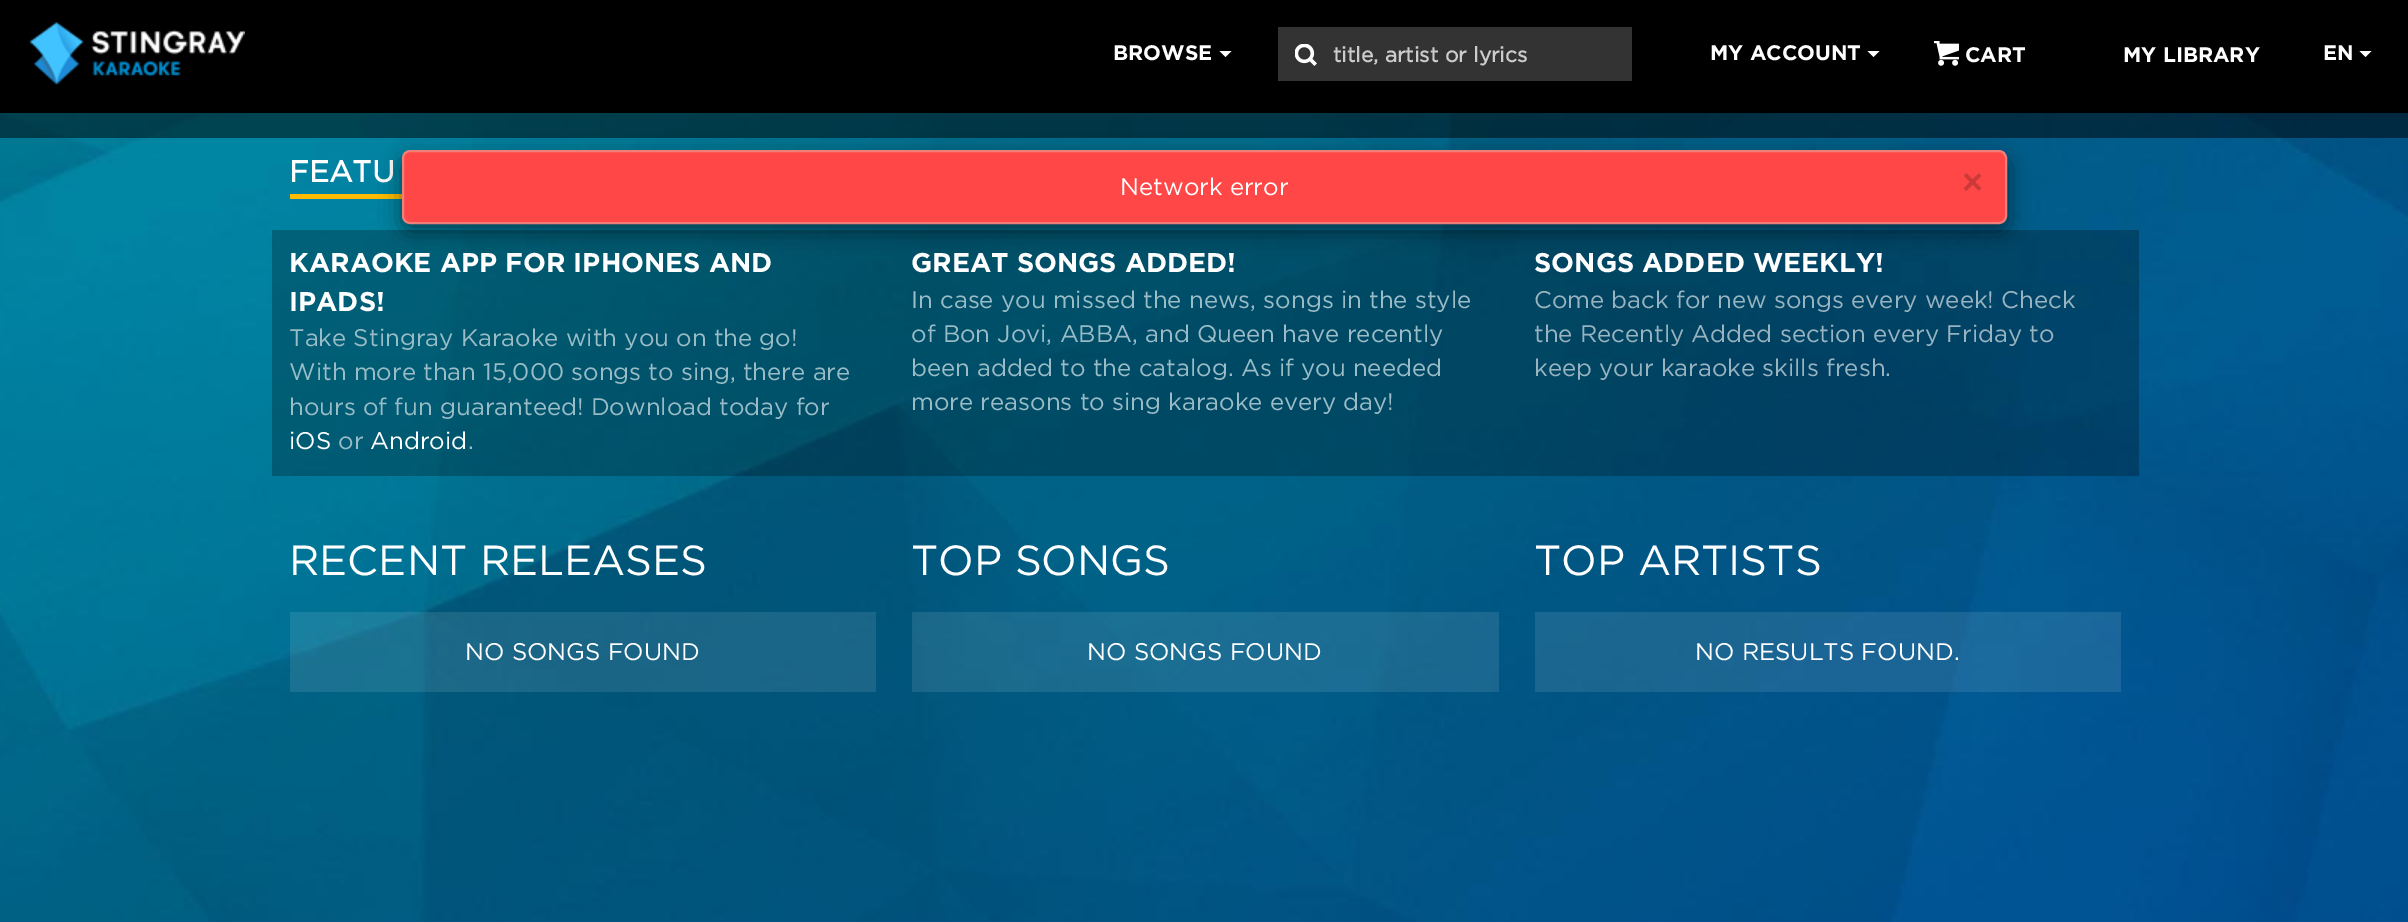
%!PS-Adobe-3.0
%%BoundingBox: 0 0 2408 922
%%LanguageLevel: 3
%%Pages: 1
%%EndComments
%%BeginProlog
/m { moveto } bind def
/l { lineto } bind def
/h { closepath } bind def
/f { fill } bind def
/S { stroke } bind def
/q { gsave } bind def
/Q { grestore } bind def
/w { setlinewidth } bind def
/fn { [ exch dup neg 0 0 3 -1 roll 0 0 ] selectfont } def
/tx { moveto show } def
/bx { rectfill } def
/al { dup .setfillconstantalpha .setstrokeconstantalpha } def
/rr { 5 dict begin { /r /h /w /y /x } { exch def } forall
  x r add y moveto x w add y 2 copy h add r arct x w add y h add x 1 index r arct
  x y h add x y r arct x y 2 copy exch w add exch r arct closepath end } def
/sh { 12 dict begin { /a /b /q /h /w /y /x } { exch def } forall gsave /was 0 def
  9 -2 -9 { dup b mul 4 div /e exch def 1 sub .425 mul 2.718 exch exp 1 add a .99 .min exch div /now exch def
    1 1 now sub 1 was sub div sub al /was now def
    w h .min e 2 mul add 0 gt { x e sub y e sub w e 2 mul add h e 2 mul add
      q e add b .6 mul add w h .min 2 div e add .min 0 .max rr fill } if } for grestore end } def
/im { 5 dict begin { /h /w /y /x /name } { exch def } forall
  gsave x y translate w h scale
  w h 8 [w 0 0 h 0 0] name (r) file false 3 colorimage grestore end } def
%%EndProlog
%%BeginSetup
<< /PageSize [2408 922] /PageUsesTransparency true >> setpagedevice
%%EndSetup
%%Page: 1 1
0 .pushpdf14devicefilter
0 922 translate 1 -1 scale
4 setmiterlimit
1 setgray
0 0 2408 922 bx
(image0.raw) 0 113 2408 809 im
0 setgray
0 0 2408 113 bx
(image1.raw) 30 22 215 63 im
/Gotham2-Bold 21 fn
1 setgray
(BROWSE) 1113 60 tx
1219.5 51 m 1231.5 51 l 1225.5 57 l h f
0.2 setgray
1278 27 354 54 bx
(image2.raw) 1295 44 22 22 im
/Gotham-Bold 21 fn
0.8 setgray
(title, artist or lyrics) 1333 62 tx
/Gotham2-Bold 21 fn
1 setgray
(MY ACCOUNT) 1710 60 tx
1867.5 51 m 1879.5 51 l 1873.5 57 l h f
(image3.raw) 1934 41 25 25 im
(CART) 1965 62 tx
(MY LIBRARY) 2123 62 tx
(EN) 2323 60 tx
2359.5 51 m 2371.5 51 l 2365.5 57 l h f
0.5 al
0 setgray
0 113 2408 25 bx
1 al
1 0.733 0 setrgbcolor
290 194 112 5 bx
/Gotham-Bold 30 fn
1 setgray
(FEATU) 289 182 tx
0.25 al
0 setgray
272 230 1867 246 bx
/Gotham2-Bold 27 fn
1 al
1 setgray
(KARAOKE APP FOR IPHONES AND) 289 272 tx
(IPADS!) 289 311 tx
/Gotham-Regular 24 fn
0.6 0.737 0.776 setrgbcolor
(Take Stingray Karaoke with you on the go!) 289 346 tx
(With more than 15,000 songs to sing, there are) 289 380 tx
(hours of fun guaranteed! Download today for) 289 415 tx
1 setgray
(iOS) 289 449 tx
0.6 0.737 0.776 setrgbcolor
(or) 338 449 tx
1 setgray
(Android) 370 449 tx
0.6 0.737 0.776 setrgbcolor
(.) 468 449 tx
/Gotham2-Bold 27 fn
1 setgray
(GREAT SONGS ADDED!) 911 272 tx
/Gotham-Regular 24 fn
0.6 0.737 0.776 setrgbcolor
(In case you missed the news, songs in the style) 911 308 tx
(of Bon Jovi, ABBA, and Queen have recently) 911 342 tx
(been added to the catalog. As if you needed) 911 376 tx
(more reasons to sing karaoke every day!) 911 410 tx
/Gotham2-Bold 27 fn
1 setgray
(SONGS ADDED WEEKLY!) 1534 272 tx
/Gotham-Regular 24 fn
0.6 0.706 0.757 setrgbcolor
(Come back for new songs every week! Check) 1534 308 tx
(the Recently Added section every Friday to) 1534 342 tx
(keep your karaoke skills fresh.) 1534 376 tx
/Gotham-Regular 42 fn
1 setgray
(RECENT RELEASES) 289 575 tx
0.1 al
290 612 586 80 bx
/Gotham-Regular 24 fn
1 al
(NO SONGS FOUND) 465 660 tx
/Gotham-Regular 42 fn
(TOP SONGS) 911 575 tx
0.1 al
912 612 587 80 bx
/Gotham-Regular 24 fn
1 al
(NO SONGS FOUND) 1087 660 tx
/Gotham-Regular 42 fn
(TOP ARTISTS) 1534 575 tx
0.1 al
1535 612 586 80 bx
/Gotham-Regular 24 fn
1 al
(NO RESULTS FOUND.) 1695 660 tx
0 setgray
402 158 1605 73 8 11 0.5 sh
1 0.278 0.278 setrgbcolor
403 151 1603 72 7 rr q f Q
0.941 0.494 0.475 setrgbcolor
2 w
S
1 setgray
(Network error) 1120 195 tx
/LiberationSans-Bold 36 fn
0.8 0.224 0.224 setrgbcolor
(×) 1962 194 tx
.poppdf14devicefilter showpage
%%EOF
